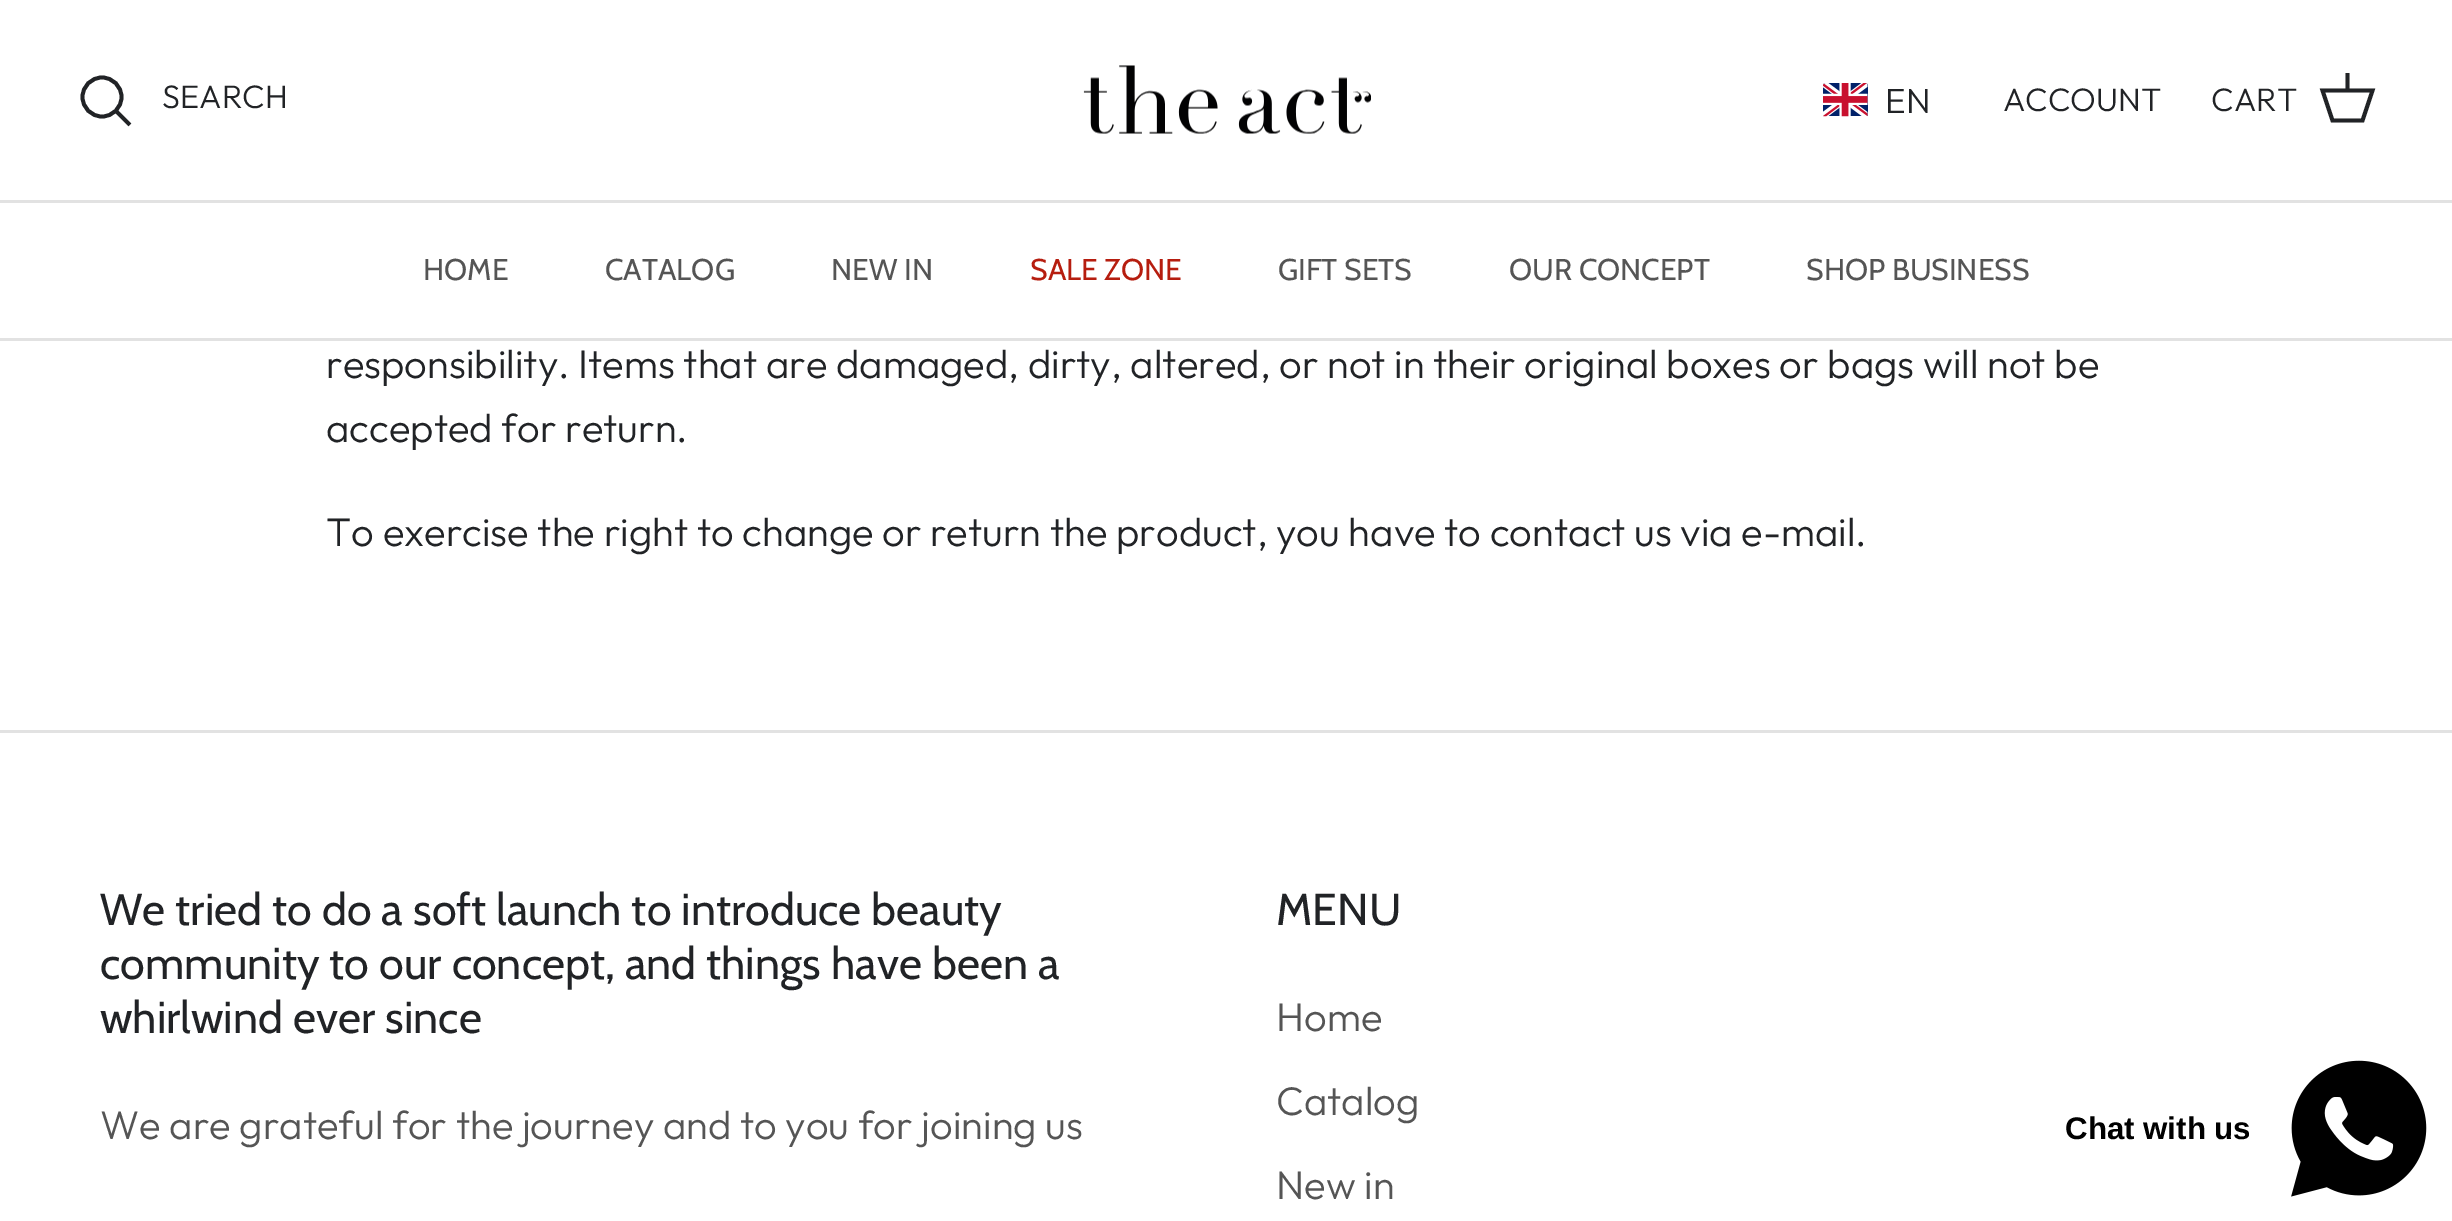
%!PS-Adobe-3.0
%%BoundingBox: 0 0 2452 1221
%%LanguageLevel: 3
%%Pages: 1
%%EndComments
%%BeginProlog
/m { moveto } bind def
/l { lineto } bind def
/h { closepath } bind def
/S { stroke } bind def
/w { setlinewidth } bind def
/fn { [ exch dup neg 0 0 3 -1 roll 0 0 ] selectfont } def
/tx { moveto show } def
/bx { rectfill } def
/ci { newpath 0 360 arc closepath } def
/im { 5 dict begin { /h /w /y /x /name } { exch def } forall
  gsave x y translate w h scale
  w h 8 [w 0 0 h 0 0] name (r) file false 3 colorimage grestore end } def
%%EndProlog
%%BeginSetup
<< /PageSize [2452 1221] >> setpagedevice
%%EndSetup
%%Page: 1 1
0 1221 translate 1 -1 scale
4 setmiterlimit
1 setgray
0 0 2452 1221 bx
0.886 setgray
0 200 2452 3 bx
0.129 0.137 0.149 setrgbcolor
3.8 w
102 97 19.5 ci S
/Outfit-Light 32.5 fn
(SEARCH) 162 108 tx
2 setlinecap
117.5 112.5 m 128.5 123.5 l S
(image0.raw) 1083 65 288 69 im
(image1.raw) 1823 83 45 34 im
/Outfit-Light 35 fn
(EN) 1885 113 tx
/Outfit-Light 32.5 fn
(ACCOUNT) 2003 111 tx
(CART) 2211 111 tx
0 setlinecap
2322.5 90.5 m 2372.5 90.5 l 2362.5 120.5 l 2332.5 120.5 l h S
2 setlinecap
2347.5 90 m 2347.5 75 l S
0.886 setgray
0 338 2452 3 bx
/Cabin-Regular 30 fn
0.333 setgray
(HOME) 423 280 tx
(CATALOG) 605 280 tx
(NEW IN) 831 280 tx
0.714 0.114 0.059 setrgbcolor
(SALE ZONE) 1030 280 tx
0.333 setgray
(GIFT SETS) 1278 280 tx
(OUR CONCEPT) 1509 280 tx
(SHOP BUSINESS) 1806 280 tx
/Outfit-Light 40 fn
0.129 0.137 0.149 setrgbcolor
(responsibility. Items that are damaged, dirty, altered, or not in their original boxes or bags will not be) 326 378 tx
(accepted for return.) 326 442 tx
(To exercise the right to change or return the product, you have to contact us via e-mail.) 326 546 tx
0.886 setgray
0 730 2452 3 bx
/Cabin-Regular 44.8 fn
0.129 0.137 0.149 setrgbcolor
(We tried to do a soft launch to introduce beauty) 100 925 tx
(community to our concept, and things have been a) 100 979 tx
(whirlwind ever since) 100 1033 tx
/Outfit-Light 40 fn
0.333 setgray
(We are grateful for the journey and to you for joining us) 100 1139 tx
/Cabin-Regular 44.8 fn
0.129 0.137 0.149 setrgbcolor
(MENU) 1276 925 tx
/Outfit-Light 40 fn
0.333 setgray
(Home) 1276 1031 tx
(Catalog) 1276 1115 tx
(New in) 1276 1199 tx
/LiberationSans-Bold 31.25 fn
0 setgray
(Chat with us) 2065 1139 tx
(image2.raw) 2291 1060 136 137 im
showpage
%%EOF
